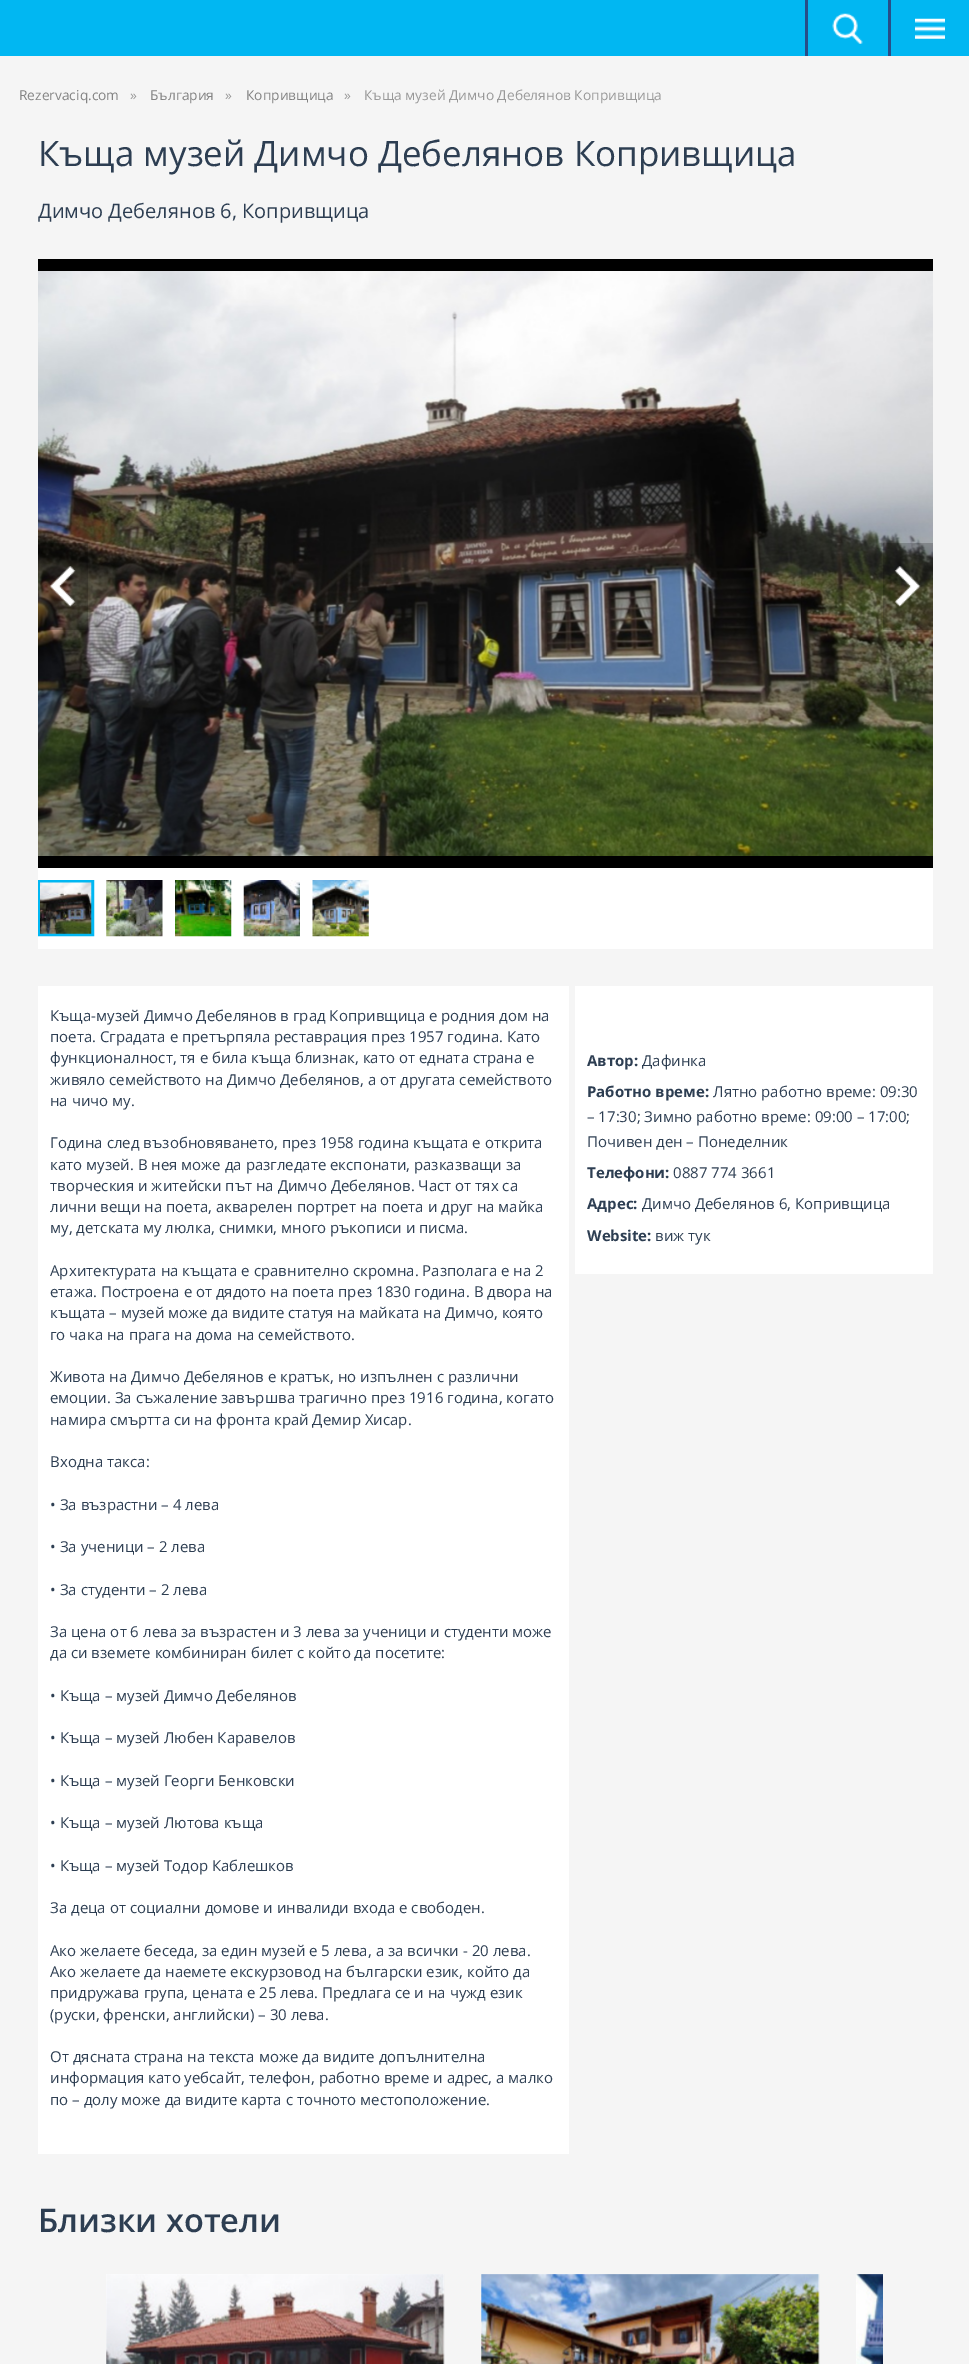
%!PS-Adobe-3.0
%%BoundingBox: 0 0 969 2364
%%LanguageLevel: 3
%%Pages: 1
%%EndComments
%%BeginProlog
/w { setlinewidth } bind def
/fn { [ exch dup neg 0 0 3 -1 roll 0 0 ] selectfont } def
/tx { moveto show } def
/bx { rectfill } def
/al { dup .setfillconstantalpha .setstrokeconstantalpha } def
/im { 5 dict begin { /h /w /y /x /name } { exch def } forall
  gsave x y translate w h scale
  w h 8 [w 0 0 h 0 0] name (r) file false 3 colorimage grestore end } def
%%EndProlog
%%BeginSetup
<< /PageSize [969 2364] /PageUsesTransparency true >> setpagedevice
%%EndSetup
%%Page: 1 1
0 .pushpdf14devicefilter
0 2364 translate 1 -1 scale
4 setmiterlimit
0.961 setgray
0 0 969 2364 bx
0.004 0.718 0.949 setrgbcolor
0 0 969 56 bx
(image0.raw) 832 13 31 31 im
0.157 0.306 0.533 setrgbcolor
805 0 3 56 bx
(image1.raw) 915 18 30 21 im
888 0 3 56 bx
/OpenSans-Regular 13.75 fn
0.514 setgray
(Rezervaciq.com) 19 100 tx
0.6 setgray
(») 130 100 tx
0.514 setgray
(България) 150 100 tx
0.6 setgray
(») 225 100 tx
0.514 setgray
(Копривщица) 246 100 tx
0.6 setgray
(») 344 100 tx
(Къща музей Димчо Дебелянов Копривщица) 364 100 tx
/OpenSans-Regular 35 fn
0.176 0.243 0.322 setrgbcolor
(Къща музей Димчо Дебелянов Копривщица) 38 166 tx
/OpenSans-Regular 20 fn
(Димчо Дебелянов 6, Копривщица) 38 218 tx
1 setgray
38 868 895 81 bx
0 setgray
38 259 895 609 bx
(image2.raw) 38 271 895 585 im
0.2 al
38 543 50 87 bx
1 al
(image3.raw) 49 566 27 41 im
0.2 al
883 543 50 87 bx
1 al
(image4.raw) 894 566 27 41 im
0.004 0.718 0.949 setrgbcolor
3 w
39.5 881.5 53 53 rectstroke
(image5.raw) 40 882 52 52 im
(image6.raw) 106 880 57 57 im
(image7.raw) 175 880 57 57 im
(image8.raw) 243 880 57 57 im
(image9.raw) 312 880 57 57 im
1 setgray
38 986 531 1168 bx
/OpenSans-Regular 15 fn
0.176 0.243 0.322 setrgbcolor
(Къща-музей Димчо Дебелянов в град Копривщица е родния дом на) 50 1021 tx
(поета. Сградата е претърпяла реставрация през 1957 година. Като) 50 1042 tx
(функционалност, тя е била къща близнак, като от едната страна е) 50 1063 tx
(живяло семейството на Димчо Дебелянов, а от другата семейството) 50 1085 tx
(на чичо му.) 50 1106 tx
(Година след възобновяването, през 1958 година къщата е открита) 50 1148 tx
(като музей. В нея може да разгледате експонати, разказващи за) 50 1170 tx
(творческия и житейски път на Димчо Дебелянов. Част от тях са) 50 1191 tx
(лични вещи на поета, акварелен портрет на поета и друг на майка) 50 1212 tx
(му, детската му люлка, снимки, много ръкописи и писма.) 50 1233 tx
(Архитектурата на къщата е сравнително скромна. Разполага е на 2) 50 1276 tx
(етажа. Построена е от дядото на поета през 1830 година. В двора на) 50 1297 tx
(къщата – музей може да видите статуя на майката на Димчо, която) 50 1318 tx
(го чака на прага на дома на семейството.) 50 1340 tx
(Живота на Димчо Дебелянов е кратък, но изпълнен с различни) 50 1382 tx
(емоции. За съжаление завършва трагично през 1916 година, когато) 50 1403 tx
(намира смъртта си на фронта край Демир Хисар.) 50 1425 tx
(Входна такса:) 50 1467 tx
(• За възрастни – 4 лева) 50 1510 tx
(• За ученици – 2 лева) 50 1552 tx
(• За студенти – 2 лева) 50 1595 tx
(За цена от 6 лева за възрастен и 3 лева за ученици и студенти може) 50 1637 tx
(да си вземете комбиниран билет с който да посетите:) 50 1658 tx
(• Къща – музей Димчо Дебелянов) 50 1701 tx
(• Къща – музей Любен Каравелов) 50 1743 tx
(• Къща – музей Георги Бенковски) 50 1786 tx
(• Къща – музей Лютова къща) 50 1828 tx
(• Къща – музей Тодор Каблешков) 50 1871 tx
(За деца от социални домове и инвалиди входа е свободен.) 50 1913 tx
(Ако желаете беседа, за един музей е 5 лева, а за всички - 20 лева.) 50 1956 tx
(Ако желаете да наемете екскурзовод на български език, който да) 50 1977 tx
(придружава група, цената е 25 лева. Предлага се и на чужд език) 50 1998 tx
(\(руски, френски, английски\) – 30 лева.) 50 2020 tx
(От дясната страна на текста може да видите допълнителна) 50 2062 tx
(информация като уебсайт, телефон, работно време и адрес, а малко) 50 2083 tx
(по – долу може да видите карта с точното местоположение.) 50 2105 tx
1 setgray
575 986 358 288 bx
/OpenSans-Bold 15 fn
0.176 0.243 0.322 setrgbcolor
(Автор:) 587 1066 tx
/OpenSans-Regular 15 fn
(Дафинка) 642 1066 tx
/OpenSans-Bold 15 fn
(Работно време:) 587 1097 tx
/OpenSans-Regular 15 fn
(Лятно работно време: 09:30) 713 1097 tx
(– 17:30; Зимно работно време: 09:00 – 17:00;) 587 1122 tx
(Почивен ден – Понеделник) 587 1147 tx
/OpenSans-Bold 15 fn
(Телефони:) 587 1178 tx
/OpenSans-Regular 15 fn
(0887 774 3661) 673 1178 tx
/OpenSans-Bold 15 fn
(Адрес:) 587 1209 tx
/OpenSans-Regular 15 fn
(Димчо Дебелянов 6, Копривщица) 642 1209 tx
/OpenSans-Bold 15 fn
(Website:) 587 1241 tx
/OpenSans-Regular 15 fn
(виж тук) 655 1241 tx
/OpenSans-SemiBold 32.5 fn
(Близки хотели) 38 2232 tx
1 setgray
106 2274 338 90 bx
(image10.raw) 106 2274 339 90 im
481 2274 338 90 bx
(image11.raw) 481 2274 339 90 im
856 2274 27 90 bx
(image12.raw) 856 2274 27 90 im
.poppdf14devicefilter showpage
%%EOF
